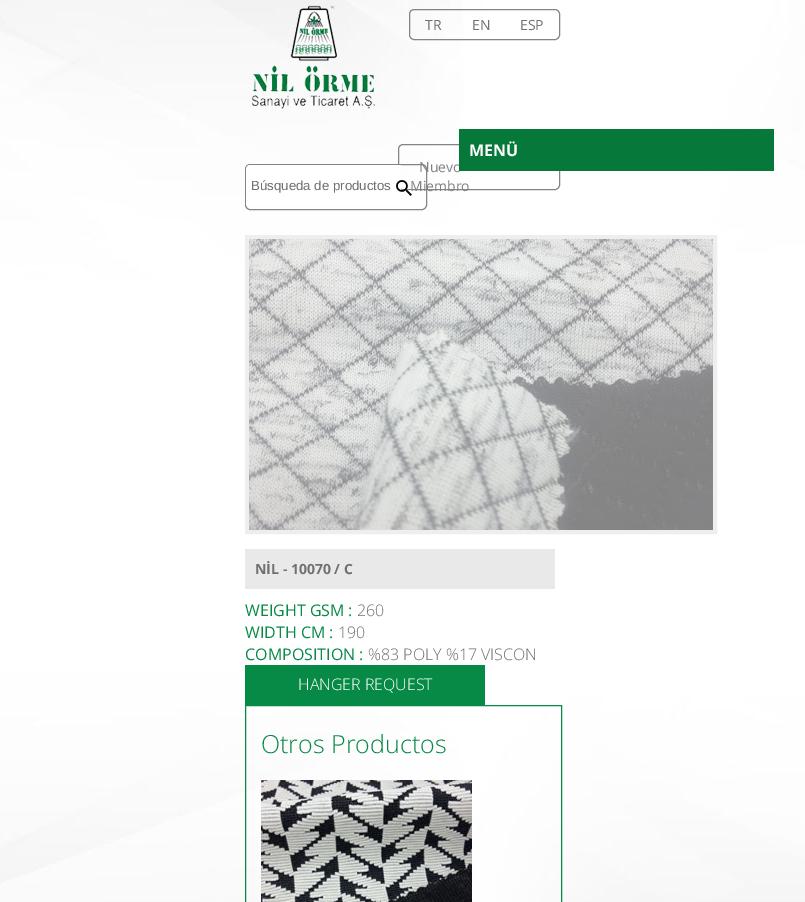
%!PS-Adobe-3.0
%%BoundingBox: 0 0 805 902
%%LanguageLevel: 3
%%Pages: 1
%%EndComments
%%BeginProlog
/m { moveto } bind def
/l { lineto } bind def
/c { curveto } bind def
/h { closepath } bind def
/f { fill } bind def
/S { stroke } bind def
/w { setlinewidth } bind def
/fn { [ exch dup neg 0 0 3 -1 roll 0 0 ] selectfont } def
/tx { moveto show } def
/bx { rectfill } def
/rr { 5 dict begin { /r /h /w /y /x } { exch def } forall
  x r add y moveto x w add y 2 copy h add r arct x w add y h add x 1 index r arct
  x y h add x y r arct x y 2 copy exch w add exch r arct closepath end } def
/im { 5 dict begin { /h /w /y /x /name } { exch def } forall
  gsave x y translate w h scale
  w h 8 [w 0 0 h 0 0] name (r) file false 3 colorimage grestore end } def
%%EndProlog
%%BeginSetup
<< /PageSize [805 902] >> setpagedevice
%%EndSetup
%%Page: 1 1
0 902 translate 1 -1 scale
4 setmiterlimit
1 setgray
0 0 805 902 bx
(image0.raw) 0 0 805 902 im
(image1.raw) 252 5 123 104 im
0.522 0.514 0.514 setrgbcolor
409.5 9.5 150 30 4.5 rr S
/OpenSans-Regular 14 fn
0.439 setgray
(TR) 425 30 tx
(EN) 472 30 tx
(ESP) 520 30 tx
0.522 0.514 0.514 setrgbcolor
398.5 144.5 161 45 4.5 rr S
0.502 setgray
(Nuevo) 419 172 tx
(Miembro) 410 191 tx
0.522 0.514 0.514 setrgbcolor
245.5 164.5 181 45 4.5 rr S
1 setgray
250 165 m 401 165 l 401 205 l 246 205 l 246 169 l 246 167 248 165 250 165 c h f
/LiberationSans-Regular 13.25 fn
0.439 setgray
(Búsqueda de productos) 251 190 tx
(image2.raw) 396 180 16 16 im
0.024 0.471 0.224 setrgbcolor
459 129 315 42 bx
/OpenSans-Bold 16 fn
1 setgray
(MENÜ) 469 156 tx
0.933 setgray
4 w
247 237 468 295 rectstroke
(image3.raw) 249 239 464 291 im
0.914 setgray
245 549 310 40 bx
/OpenSans-Bold 14 fn
0.439 setgray
(NİL - 10070 / C) 255 574 tx
/OpenSans-Regular 16 fn
0.024 0.541 0.271 setrgbcolor
(WEIGHT GSM :) 245 616 tx
/OpenSans-Light 16 fn
0.439 setgray
(260) 357 616 tx
/OpenSans-Regular 16 fn
0.024 0.541 0.271 setrgbcolor
(WIDTH CM :) 245 638 tx
/OpenSans-Light 16 fn
0.439 setgray
(190) 338 638 tx
/OpenSans-Regular 16 fn
0.024 0.541 0.271 setrgbcolor
(COMPOSITION :) 245 660 tx
/OpenSans-Light 16 fn
0.439 setgray
(%83 POLY %17 VISCON) 368 660 tx
0.024 0.541 0.271 setrgbcolor
245 665 240 40 bx
1 setgray
(HANGER REQUEST) 298 690 tx
0.024 0.541 0.271 setrgbcolor
1 w
245.5 705.5 316 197 rectstroke
/OpenSans-Light 25 fn
(Otros Productos) 261 753 tx
(image4.raw) 261 780 211 122 im
showpage
%%EOF
